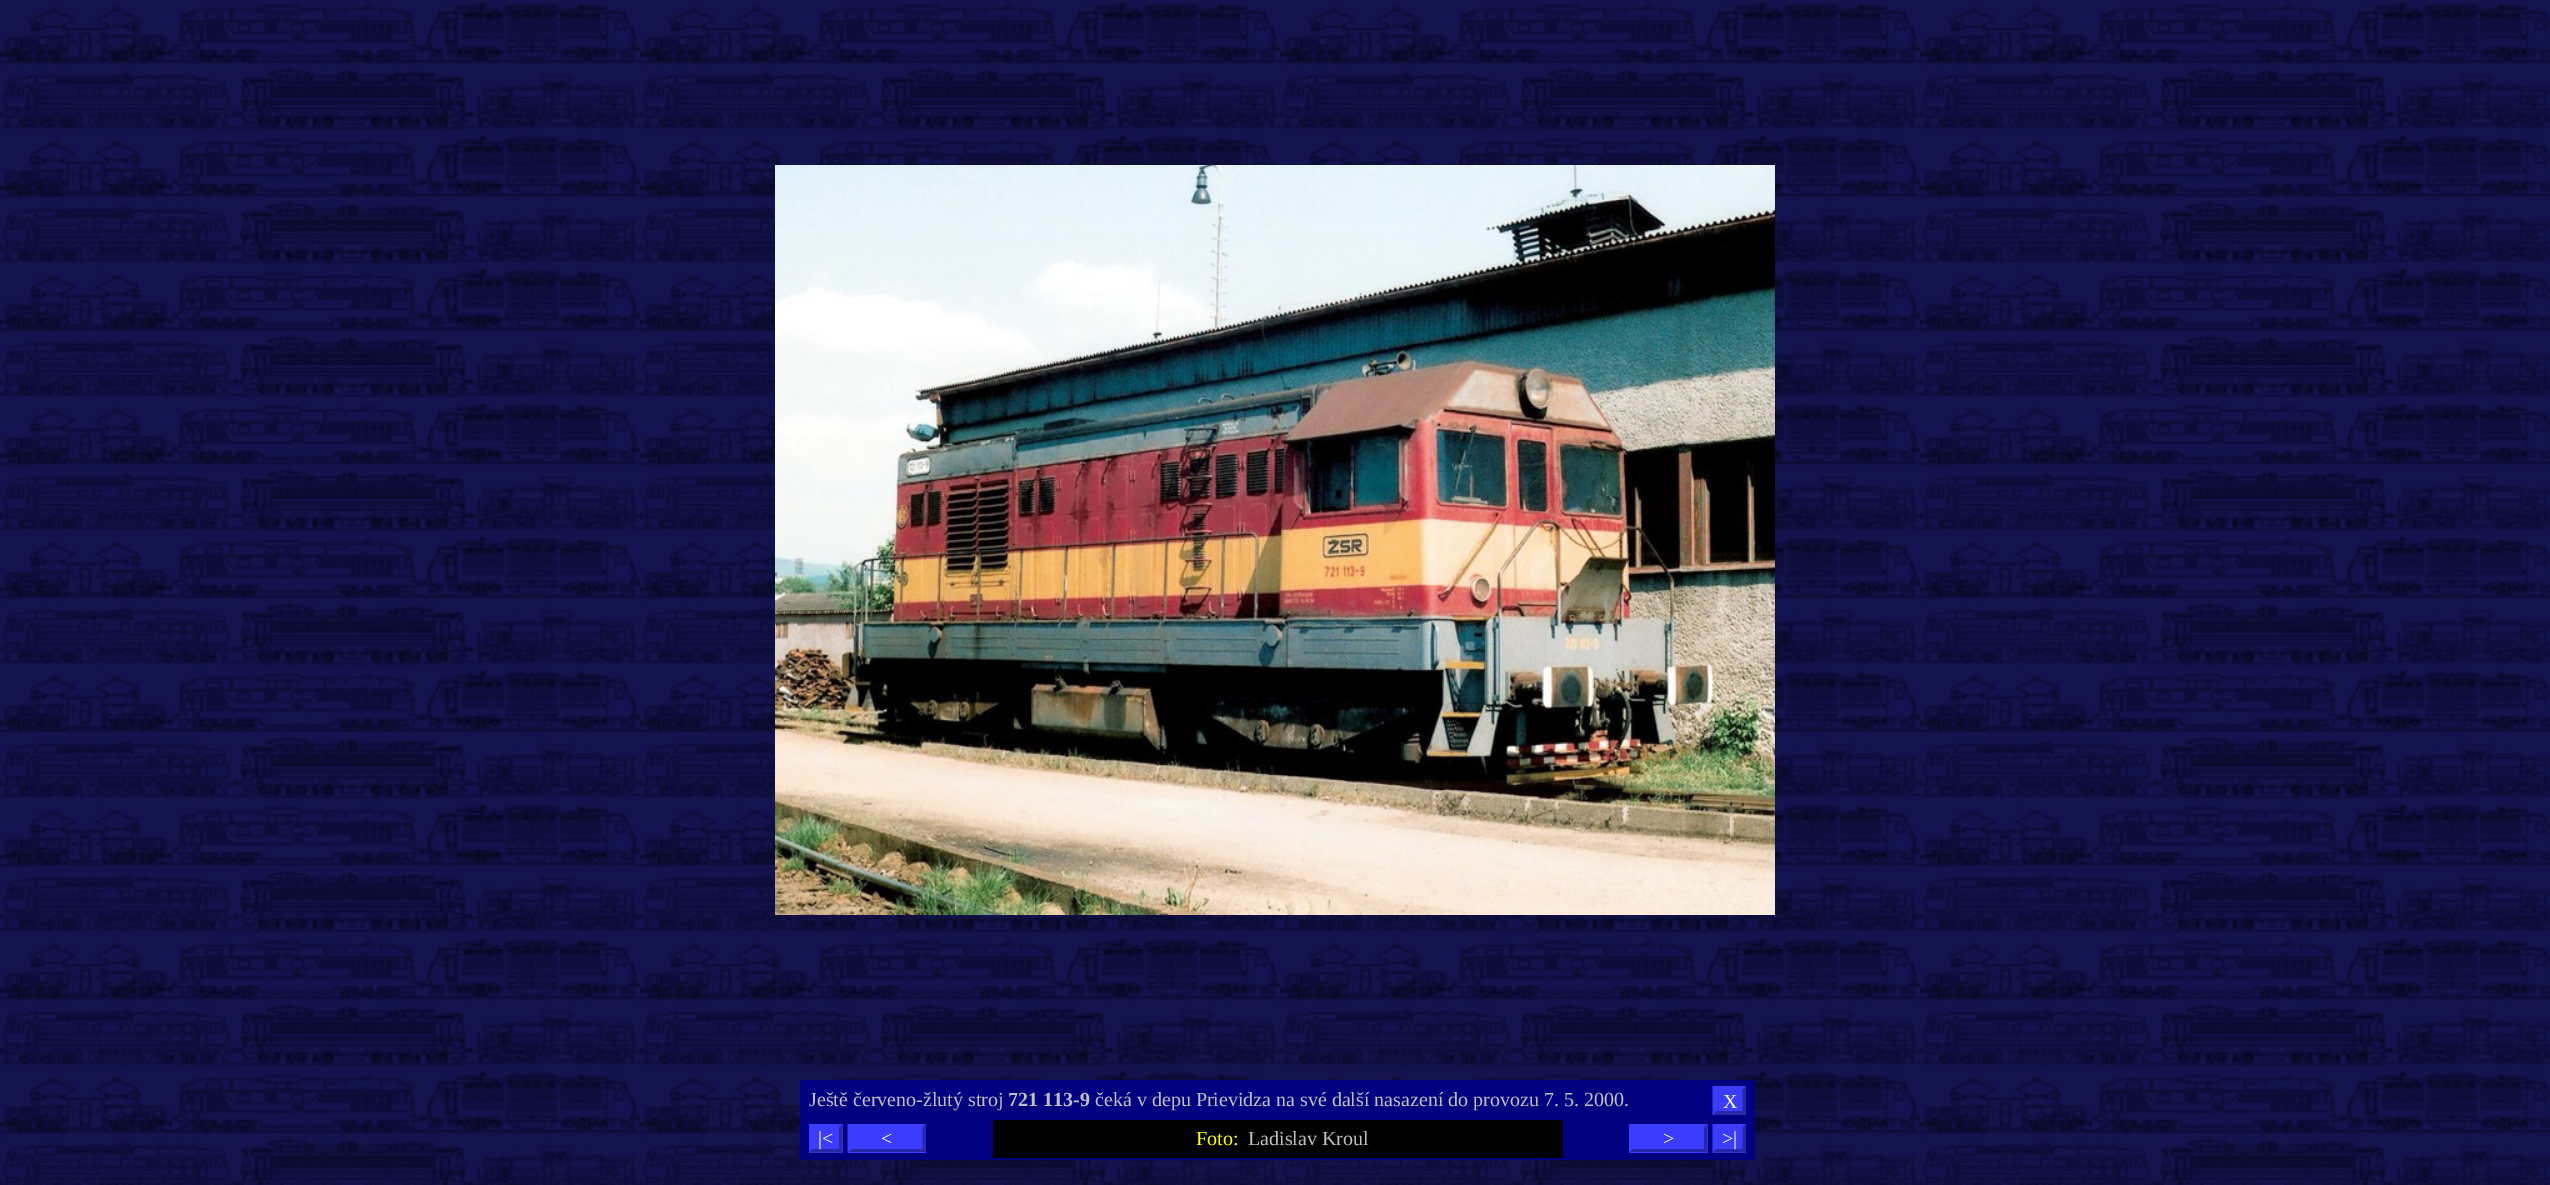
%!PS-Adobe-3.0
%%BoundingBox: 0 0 2550 1185
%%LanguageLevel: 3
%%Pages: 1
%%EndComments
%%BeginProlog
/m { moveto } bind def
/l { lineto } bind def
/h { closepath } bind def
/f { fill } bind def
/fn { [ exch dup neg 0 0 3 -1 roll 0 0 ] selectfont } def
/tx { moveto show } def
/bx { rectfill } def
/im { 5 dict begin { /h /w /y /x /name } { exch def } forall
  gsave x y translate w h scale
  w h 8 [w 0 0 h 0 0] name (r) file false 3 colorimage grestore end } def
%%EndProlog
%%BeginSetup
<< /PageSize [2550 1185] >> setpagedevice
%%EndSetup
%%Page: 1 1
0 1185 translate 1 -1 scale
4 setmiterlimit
1 setgray
0 0 2550 1185 bx
(image0.raw) 0 0 2550 1185 im
(image1.raw) 775 165 1000 750 im
0 0 0.502 setrgbcolor
800 1080 955 80 bx
/LiberationSerif-Regular 20 fn
0.753 setgray
(Ještě červeno-žlutý stroj) 809 1106 tx
/LiberationSerif-Bold 20 fn
(721 113-9) 1008 1106 tx
/LiberationSerif-Regular 20 fn
(čeká v depu Prievidza na své další nasazení do provozu 7. 5. 2000.) 1095 1106 tx
0.235 0.235 1 setrgbcolor
1713 1086 33 29 bx
1 setgray
(X) 1723 1108 tx
0.235 0.235 1 setrgbcolor
1712.5 1086 m 1746 1086 l 1742.5 1090 l 1716 1090 l h f
0.157 0.157 0.667 setrgbcolor
1746 1086 m 1746 1115 l 1742.5 1111 l 1742.5 1090 l h f
1746 1115 m 1712.5 1115 l 1716 1111 l 1742.5 1111 l h f
0.235 0.235 1 setrgbcolor
1712.5 1115 m 1712.5 1086 l 1716 1090 l 1716 1111 l h f
809 1124 34 29 bx
0.157 0.157 0.667 setrgbcolor
842.5 1124 m 842.5 1152.5 l 839 1149 l 839 1127.5 l h f
842.5 1152.5 m 809 1152.5 l 812.5 1149 l 839 1149 l h f
1 setgray
(|<) 818 1145 tx
0.235 0.235 1 setrgbcolor
809 1152.5 m 809 1124 l 812.5 1127.5 l 812.5 1149 l h f
848 1124 78 29 bx
1 setgray
(<) 881 1145 tx
0.157 0.157 0.667 setrgbcolor
926 1124 m 926 1152.5 l 922.5 1149 l 922.5 1127.5 l h f
926 1152 m 848 1152 l 851 1149 l 922 1149 l h f
0.235 0.235 1 setrgbcolor
847.5 1152.5 m 847.5 1124 l 851 1127.5 l 851 1149 l h f
0 setgray
993 1120 570 38 bx
1 1 0 setrgbcolor
(Foto:) 1196 1145 tx
0.753 setgray
(Ladislav Kroul) 1248 1145 tx
0.235 0.235 1 setrgbcolor
1629 1124 79 29 bx
1 setgray
(>) 1663 1145 tx
0.157 0.157 0.667 setrgbcolor
1707.5 1124 m 1707.5 1152.5 l 1704 1149 l 1704 1127.5 l h f
1708 1152 m 1629 1152 l 1632 1149 l 1704 1149 l h f
0.235 0.235 1 setrgbcolor
1629 1152.5 m 1629 1124 l 1632.5 1127.5 l 1632.5 1149 l h f
1713 1124 33 29 bx
1712.5 1124 m 1746 1124 l 1742.5 1127.5 l 1716 1127.5 l h f
0.157 0.157 0.667 setrgbcolor
1746 1124 m 1746 1152.5 l 1742.5 1149 l 1742.5 1127.5 l h f
1746 1152.5 m 1712.5 1152.5 l 1716 1149 l 1742.5 1149 l h f
1 setgray
(>|) 1722 1145 tx
0.235 0.235 1 setrgbcolor
1712.5 1152.5 m 1712.5 1124 l 1716 1127.5 l 1716 1149 l h f
showpage
%%EOF
